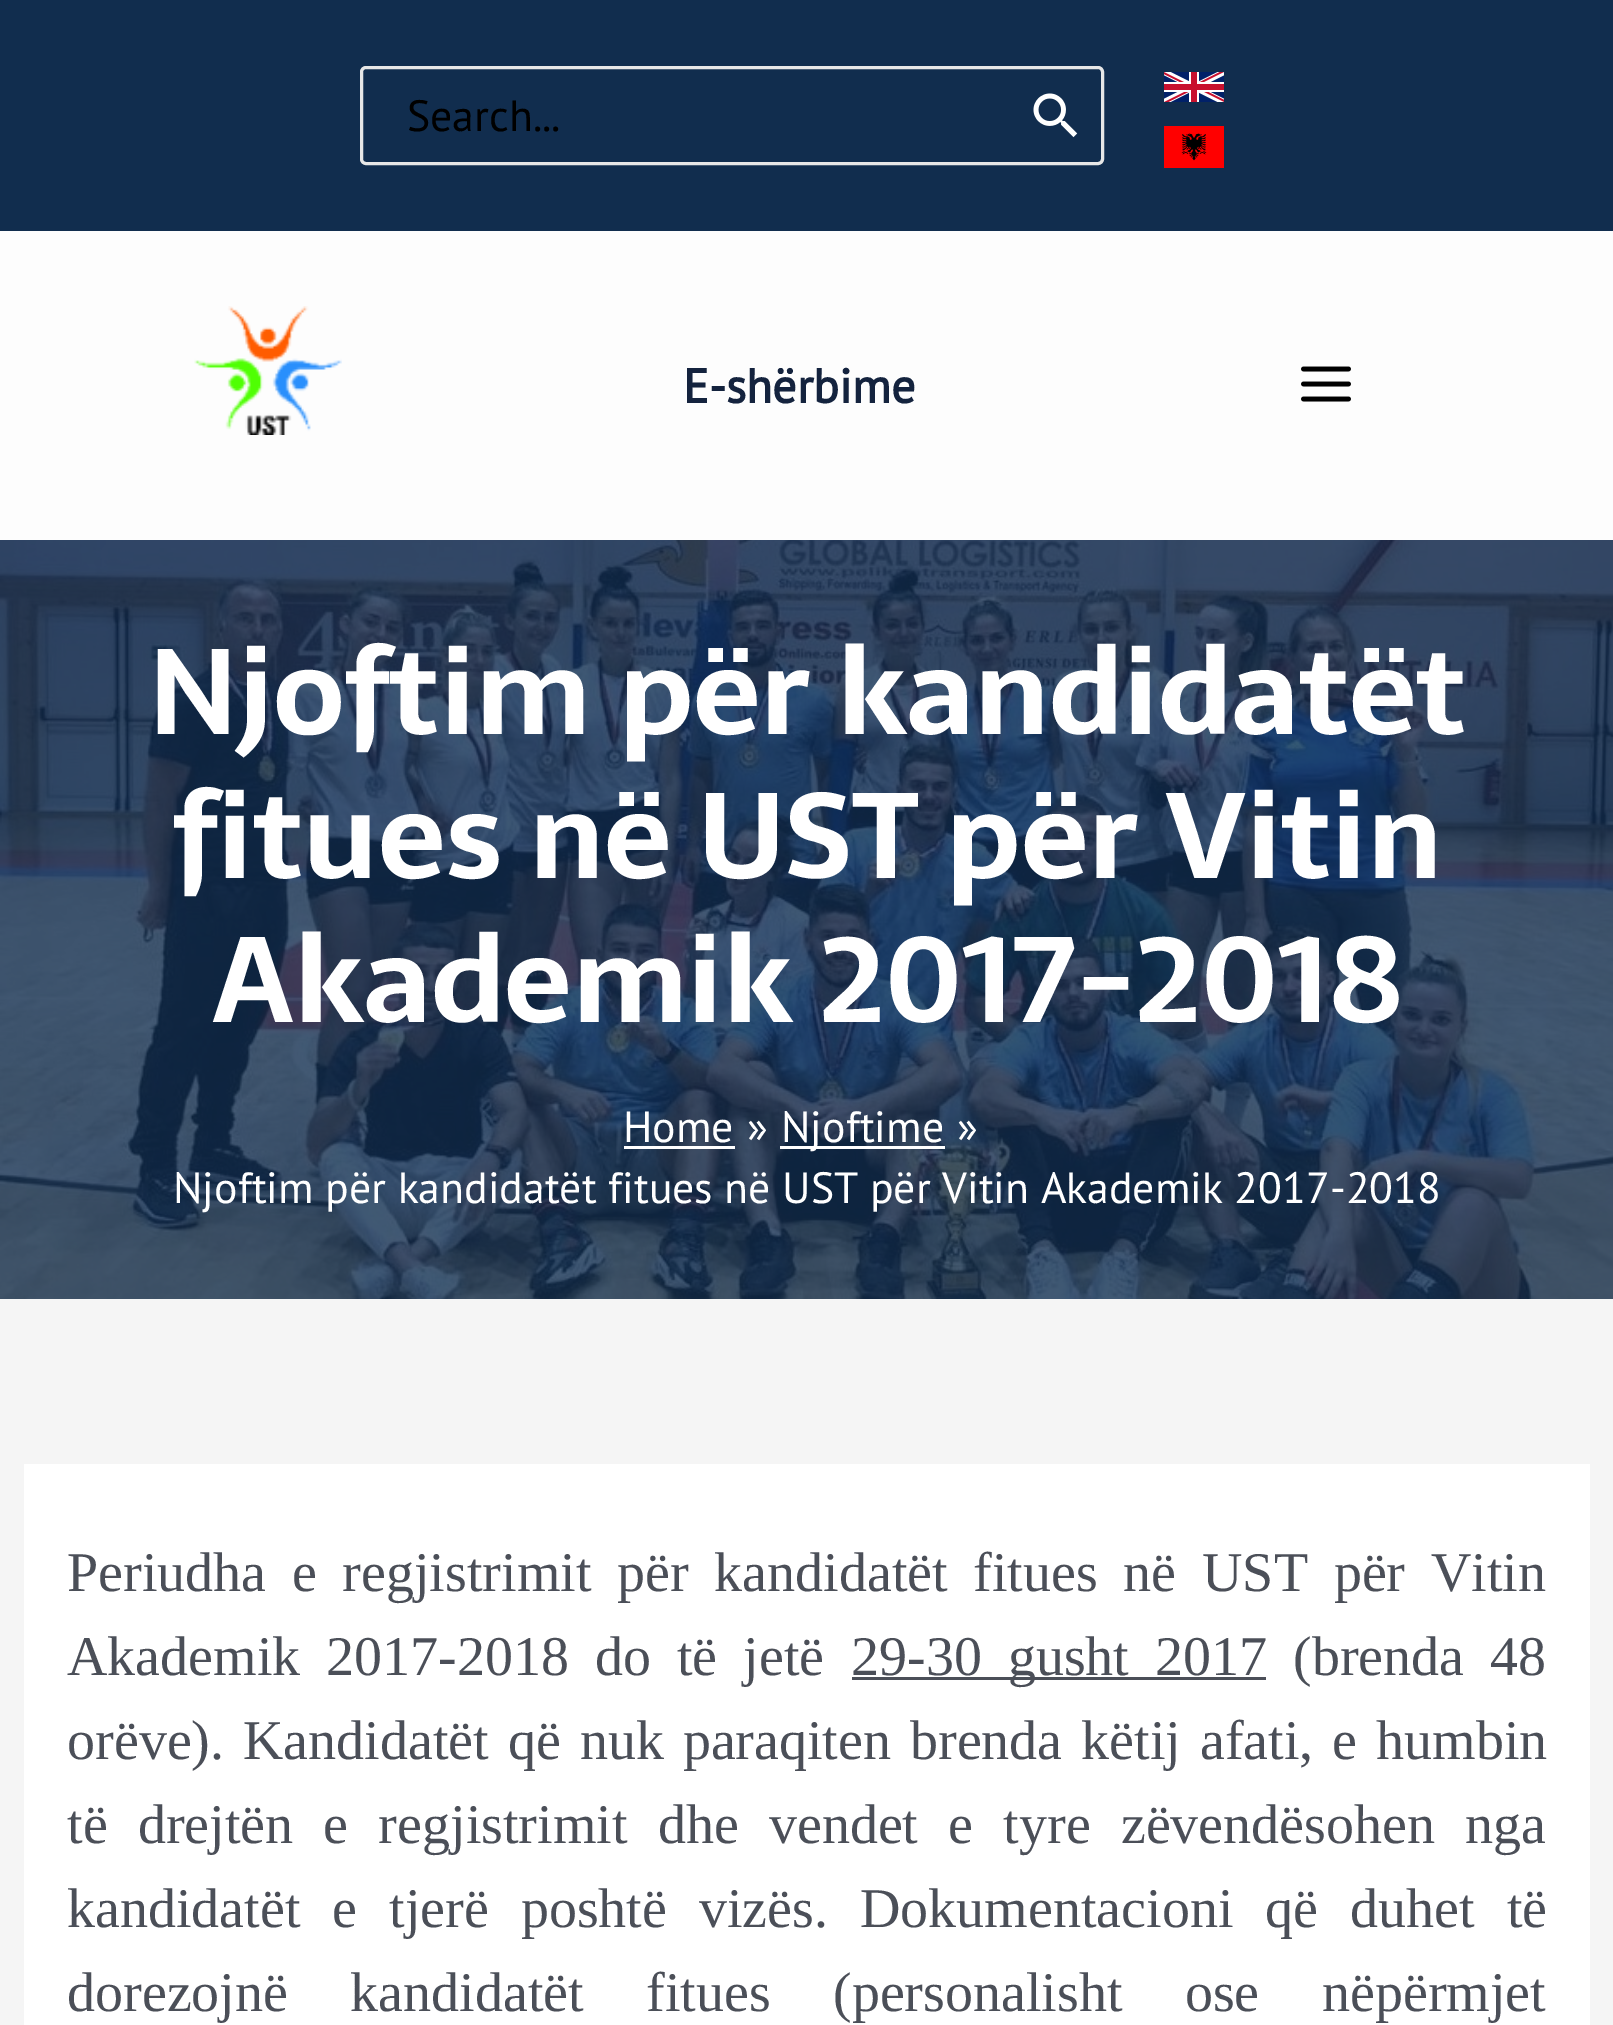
%!PS-Adobe-3.0
%%BoundingBox: 0 0 1613 2025
%%LanguageLevel: 3
%%Pages: 1
%%EndComments
%%BeginProlog
/m { moveto } bind def
/S { stroke } bind def
/w { setlinewidth } bind def
/fn { [ exch dup neg 0 0 3 -1 roll 0 0 ] selectfont } def
/tx { moveto show } def
/bx { rectfill } def
/rr { 5 dict begin { /r /h /w /y /x } { exch def } forall
  x r add y moveto x w add y 2 copy h add r arct x w add y h add x 1 index r arct
  x y h add x y r arct x y 2 copy exch w add exch r arct closepath end } def
/im { 5 dict begin { /h /w /y /x /name } { exch def } forall
  gsave x y translate w h scale
  w h 8 [w 0 0 h 0 0] name (r) file false 3 colorimage grestore end } def
%%EndProlog
%%BeginSetup
<< /PageSize [1613 2025] >> setpagedevice
%%EndSetup
%%Page: 1 1
0 2025 translate 1 -1 scale
4 setmiterlimit
0.961 setgray
0 0 1613 2025 bx
0.067 0.176 0.306 setrgbcolor
0 0 1613 231 bx
0.906 setgray
3 w
361.5 67.5 741 96 4.5 rr S
/PTSans-Regular 43.75 fn
0 setgray
(Search...) 407 131 tx
(image0.raw) 1033 93 45 45 im
(image1.raw) 1164 72 60 30 im
(image2.raw) 1164 126 60 42 im
0.992 setgray
0 231 1613 309 bx
(image3.raw) 194 306 148 129 im
/PTSans-Bold 48 fn
0.078 0.137 0.243 setrgbcolor
(E-shërbime) 683 403 tx
(image4.raw) 1301 366 50 36 im
(image5.raw) 0 540 1613 759 im
/Sarala-Bold 120 fn
1 setgray
(Njoftim për kandidatët) 148 734 tx
(fitues në UST për Vitin) 173 878 tx
(Akademik 2017-2018) 212 1022 tx
/PTSans-Regular 43.75 fn
(Home) 623 1142 tx
624 1146 111 3 bx
(») 747 1142 tx
780 1146 165 3 bx
(Njoftime) 781 1142 tx
(») 957 1142 tx
173 1203 m -0.1 0 32 (Njoftim për kandidatët fitues në UST për Vitin Akademik 2017-2018) widthshow
24 1464 1566 561 bx
/LiberationSerif-Regular 56 fn
0.294 0.31 0.345 setrgbcolor
67 1591 m 11.75 0 32 (Periudha e regjistrimit për kandidatët fitues në UST për Vitin) widthshow
67 1675 m 12 0 32 (Akademik 2017-2018 do të jetë) widthshow
852 1677 414 3 bx
851 1675 m 12 0 32 (29-30 gusht 2017) widthshow
1293 1675 m 12 0 32 (\(brenda 48) widthshow
67 1759 m 5 0 32 (orëve\). Kandidatët që nuk paraqiten brenda këtij afati, e humbin) widthshow
67 1843 m 16.25 0 32 (të drejtën e regjistrimit dhe vendet e tyre zëvendësohen nga) widthshow
67 1927 m 18 0 32 (kandidatët e tjerë poshtë vizës.) widthshow
860 1927 m 18 0 32 (Dokumentacioni që duhet të) widthshow
67 2011 m 48.5 0 32 (dorezojnë kandidatët fitues \(personalisht ose nëpërmjet) widthshow
showpage
%%EOF
